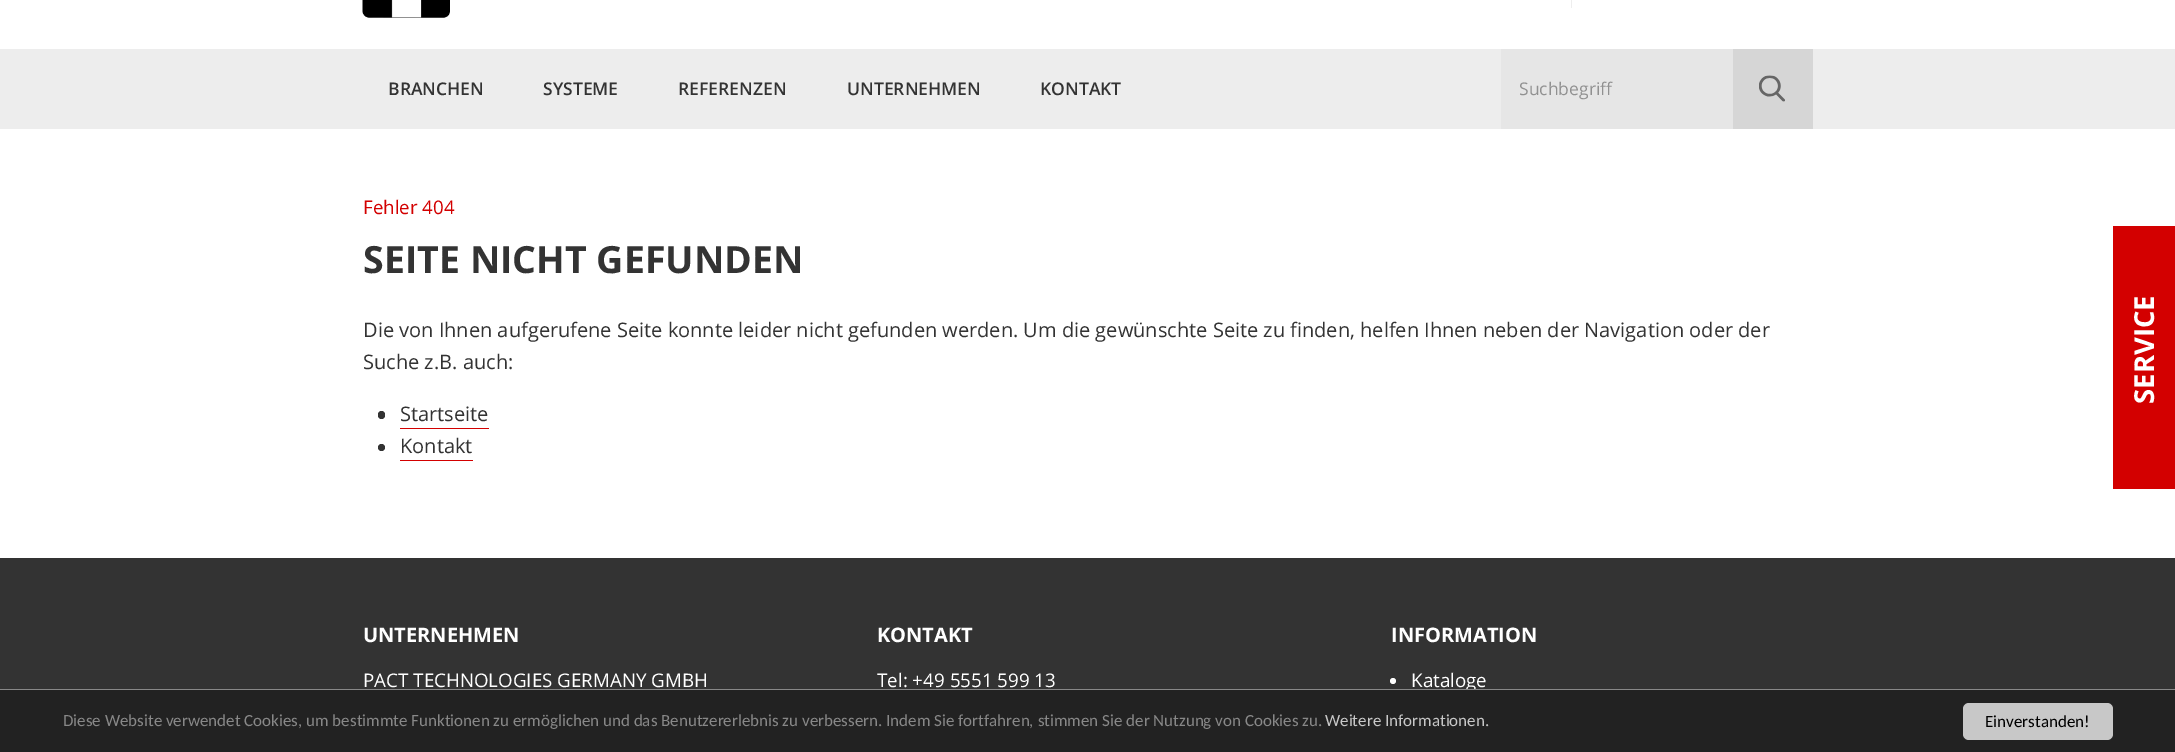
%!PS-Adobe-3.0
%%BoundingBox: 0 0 2175 752
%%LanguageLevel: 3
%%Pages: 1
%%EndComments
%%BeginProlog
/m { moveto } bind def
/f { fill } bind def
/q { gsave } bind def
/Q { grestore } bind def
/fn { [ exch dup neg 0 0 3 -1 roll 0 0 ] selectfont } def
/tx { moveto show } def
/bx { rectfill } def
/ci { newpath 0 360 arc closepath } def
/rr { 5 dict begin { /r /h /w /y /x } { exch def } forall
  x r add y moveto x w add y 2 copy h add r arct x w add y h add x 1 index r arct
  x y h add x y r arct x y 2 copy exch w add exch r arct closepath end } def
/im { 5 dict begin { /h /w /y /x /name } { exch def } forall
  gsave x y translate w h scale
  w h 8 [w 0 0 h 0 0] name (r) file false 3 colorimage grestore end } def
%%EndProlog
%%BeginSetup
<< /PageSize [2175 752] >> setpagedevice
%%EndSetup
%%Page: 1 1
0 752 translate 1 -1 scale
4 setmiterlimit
1 setgray
0 0 2175 752 bx
(image0.raw) 362 0 88 18 im
0.933 setgray
1571 0 1 8 bx
0.929 setgray
0 49 2175 80 bx
/OpenSans-SemiBold 17.5 fn
0.2 setgray
(BRANCHEN) 388 95 tx
(SYSTEME) 543 95 tx
(REFERENZEN) 678 95 tx
(UNTERNEHMEN) 847 95 tx
(KONTAKT) 1040 95 tx
0.902 setgray
1501 49 232 80 bx
/OpenSans-Regular 17.5 fn
0.569 setgray
(Suchbegriff) 1519 95 tx
0.839 setgray
1733 49 80 80 bx
(image1.raw) 1759 75 26 27 im
/OpenSans-Regular 18.75 fn
0.827 0 0 setrgbcolor
(Fehler 404) 363 214 tx
/OpenSans-Bold 37.5 fn
0.2 setgray
(SEITE NICHT GEFUNDEN) 363 273 tx
/OpenSans-Regular 20 fn
(Die von Ihnen aufgerufene Seite konnte leider nicht gefunden werden. Um die gewünschte Seite zu finden, helfen Ihnen neben der Navigation oder der) 363 337 tx
(Suche z.B. auch:) 363 369 tx
378 411 7 8 3.5 rr f
(Startseite) 400 421 tx
0.827 0 0 setrgbcolor
400 428 89 1 bx
0.2 setgray
381.5 447.5 3.5 ci f
(Kontakt) 400 453 tx
0.827 0 0 setrgbcolor
400 460 73 1 bx
2113 226 62 263 bx
/OpenSans-Bold 27.5 fn
1 setgray
q 2154 404 translate -90 rotate 0 0 m (SERVICE) show Q
0.2 setgray
0 558 2175 131 bx
/OpenSans-Bold 20 fn
1 setgray
(UNTERNEHMEN) 363 642 tx
/OpenSans-Regular 18.75 fn
(PACT TECHNOLOGIES GERMANY GMBH) 363 687 tx
/OpenSans-Bold 20 fn
(KONTAKT) 877 642 tx
/OpenSans-Regular 18.75 fn
(Tel: +49 5551 599 13) 877 687 tx
/OpenSans-Bold 20 fn
(INFORMATION) 1391 642 tx
1393 681 3 ci f
/OpenSans-Regular 18.75 fn
(Kataloge) 1411 687 tx
0.133 setgray
0 690 2175 62 bx
0.533 setgray
0 689 2175 1 bx
/Carlito-Regular 17 fn
(Diese Website verwendet Cookies, um bestimmte Funktionen zu ermöglichen und das Benutzererlebnis zu verbessern. Indem Sie fortfahren, stimmen Sie der Nutzung von Cookies zu.) 63 726 tx
0.784 setgray
(Weitere Informationen.) 1325 726 tx
1963 703 150 37 6 rr f
0 setgray
(Einverstanden!) 1985 727 tx
showpage
%%EOF
